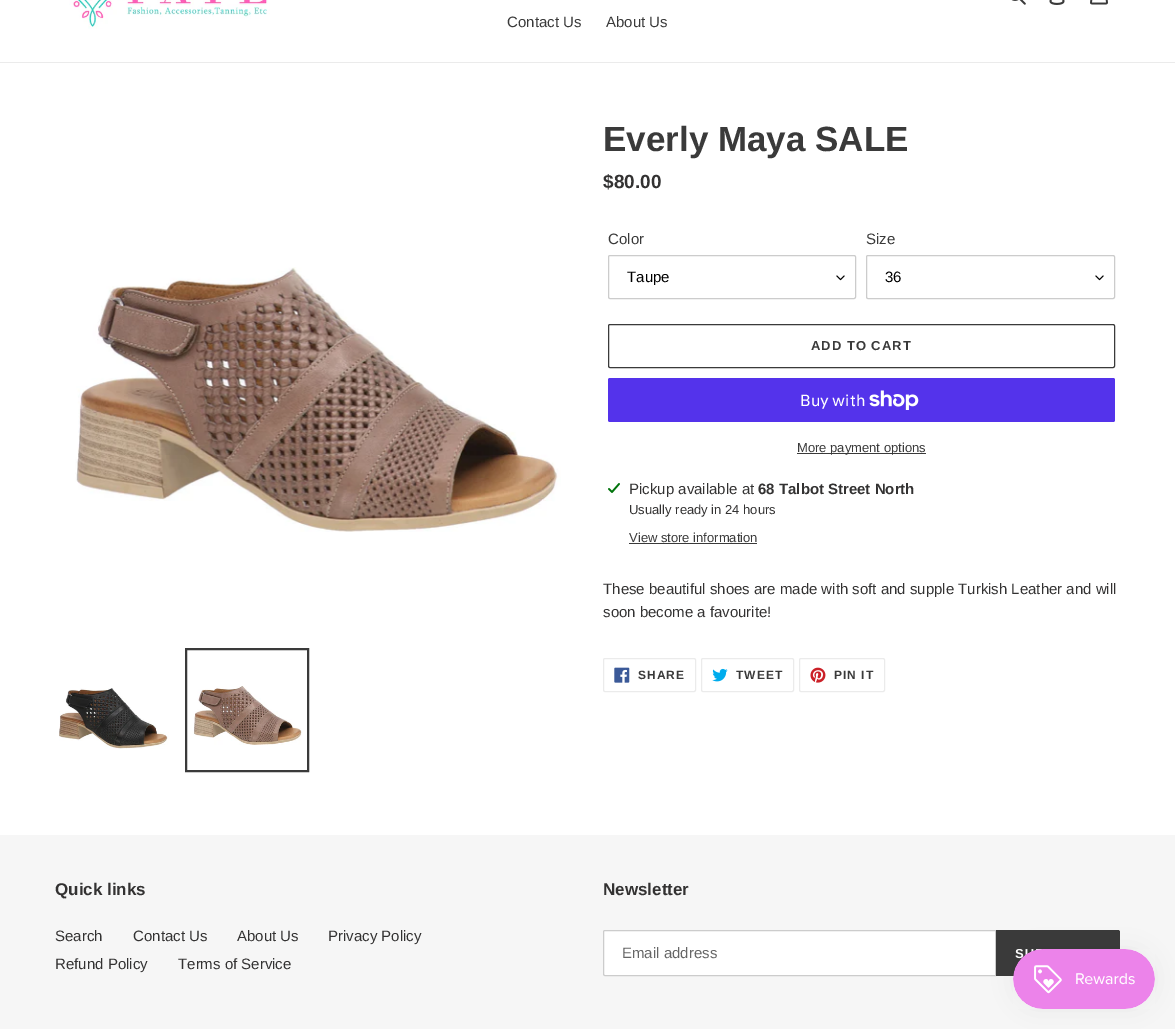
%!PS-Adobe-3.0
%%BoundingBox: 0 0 1175 1029
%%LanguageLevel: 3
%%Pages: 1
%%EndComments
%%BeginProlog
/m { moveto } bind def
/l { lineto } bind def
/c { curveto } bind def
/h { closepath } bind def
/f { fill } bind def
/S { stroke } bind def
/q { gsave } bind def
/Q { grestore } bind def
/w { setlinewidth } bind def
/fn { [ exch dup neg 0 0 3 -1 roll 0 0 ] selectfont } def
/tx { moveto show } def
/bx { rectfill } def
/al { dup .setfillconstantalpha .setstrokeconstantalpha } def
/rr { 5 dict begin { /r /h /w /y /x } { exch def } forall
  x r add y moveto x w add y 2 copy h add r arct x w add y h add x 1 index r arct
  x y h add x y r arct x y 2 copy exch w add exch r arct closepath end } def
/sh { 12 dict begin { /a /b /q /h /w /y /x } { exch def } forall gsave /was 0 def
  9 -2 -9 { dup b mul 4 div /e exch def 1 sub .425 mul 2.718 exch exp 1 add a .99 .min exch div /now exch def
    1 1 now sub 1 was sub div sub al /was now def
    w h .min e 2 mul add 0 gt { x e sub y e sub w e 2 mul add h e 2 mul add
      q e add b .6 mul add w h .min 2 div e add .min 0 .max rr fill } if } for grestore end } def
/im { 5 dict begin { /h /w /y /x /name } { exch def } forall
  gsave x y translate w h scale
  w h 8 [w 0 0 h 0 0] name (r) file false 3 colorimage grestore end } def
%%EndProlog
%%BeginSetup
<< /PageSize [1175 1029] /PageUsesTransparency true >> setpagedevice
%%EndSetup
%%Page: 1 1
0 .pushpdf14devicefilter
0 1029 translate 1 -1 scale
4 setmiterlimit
1 setgray
0 0 1175 1029 bx
0.922 setgray
0 62 1175 1 bx
(image0.raw) 69 0 201 29 im
(image1.raw) 1011 0 15 5 im
(image2.raw) 1049 0 16 5 im
(image3.raw) 1090 0 18 5 im
/LiberationSans-Regular 15 fn
0.227 setgray
(Contact Us) 507 27 tx
(About Us) 606 27 tx
(image4.raw) 75 267 486 265 im
(image5.raw) 59 688 110 61 im
2 w
186 649 122 122 rectstroke
(image6.raw) 193 686 109 59 im
/LiberationSans-Bold 35 fn
(Everly Maya SALE) 603 151 tx
/LiberationSans-Bold 19 fn
0.2 0.196 0.196 setrgbcolor
($80.00) 603 188 tx
/LiberationSans-Regular 15 fn
0.227 setgray
(Color) 608 244 tx
(image7.raw) 836 275 9 6 im
0.8 setgray
1 w
608.5 255.5 247 43 1.5 rr S
0 setgray
(Taupe) 627 282 tx
0.227 setgray
(Size) 866 244 tx
(image7.raw) 1095 275 9 6 im
0.8 setgray
866.5 255.5 248 43 1.5 rr S
0 setgray
(36) 885 282 tx
0.227 setgray
608.5 324.5 506 43 1.5 rr S
/LiberationSans-Bold 13 fn
811 350 m 1 0 (ADD TO CART) ashow
0.329 0.2 0.922 setrgbcolor
608 378 507 44 2 rr f
/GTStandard-Regular 16 fn
1 setgray
(Buy with) 800 406 tx
(image8.raw) 869 390 50 20 im
0.227 setgray
797 453 129 1 bx
/LiberationSans-Regular 13 fn
(More payment options) 797 452 tx
(image9.raw) 608 483 12 10 im
/LiberationSans-Regular 15 fn
0.2 0.196 0.196 setrgbcolor
(Pickup available at) 629 494 tx
/LiberationSans-Bold 15 fn
(68 Talbot Street North) 758 494 tx
/LiberationSans-Regular 13 fn
(Usually ready in 24 hours) 629 514 tx
0.227 setgray
(View store information) 629 542 tx
629 543 128 1 bx
/LiberationSans-Regular 15 fn
0.2 0.196 0.196 setrgbcolor
(These beautiful shoes are made with soft and supple Turkish Leather and will) 603 594 tx
(soon become a favourite!) 603 617 tx
0.922 setgray
603.5 658.5 92 33 1.5 rr S
(image10.raw) 614 667 16 16 im
/LiberationSans-Bold 12 fn
0.227 setgray
638 679 m 1 0 (SHARE) ashow
0.922 setgray
701.5 658.5 92 33 1.5 rr S
(image11.raw) 712 668 16 14 im
0.227 setgray
736 679 m 1 0 (TWEET) ashow
0.922 setgray
799.5 658.5 85 33 1.5 rr S
(image12.raw) 810 667 16 16 im
0.227 setgray
834 679 m 1 0 (PIN IT) ashow
0.965 setgray
0 835 1175 194 bx
/LiberationSans-Bold 17 fn
0.2 0.196 0.196 setrgbcolor
(Quick links) 55 895 tx
/LiberationSans-Regular 15 fn
(Search) 55 941 tx
(Contact Us) 133 941 tx
(About Us) 237 941 tx
(Privacy Policy) 328 941 tx
(Refund Policy) 55 969 tx
(Terms of Service) 178 969 tx
/LiberationSans-Bold 17 fn
(Newsletter) 603 895 tx
1 setgray
605 930.5 m 995.5 930.5 l 995.5 975.5 l 605 975.5 l 604 975.5 603.5 975 603.5 974 c 603.5 932 l 603.5 931 604 930.5 605 930.5 c h q f Q
0.8 setgray
S
/LiberationSans-Regular 15 fn
0.4 setgray
(Email address) 622 958 tx
0.227 setgray
996 930 m 1118 930 l 1119 930 1120 931 1120 932 c 1120 974 l 1120 975 1119 976 1118 976 c 996 976 l h f
/LiberationSans-Bold 13 fn
1 setgray
1015 958 m 1 0 (S) ashow
0 setgray
1013 949 142 60 30 12.5 0.05 sh
(image13.raw) 1013 949 142 60 im
.poppdf14devicefilter showpage
%%EOF
